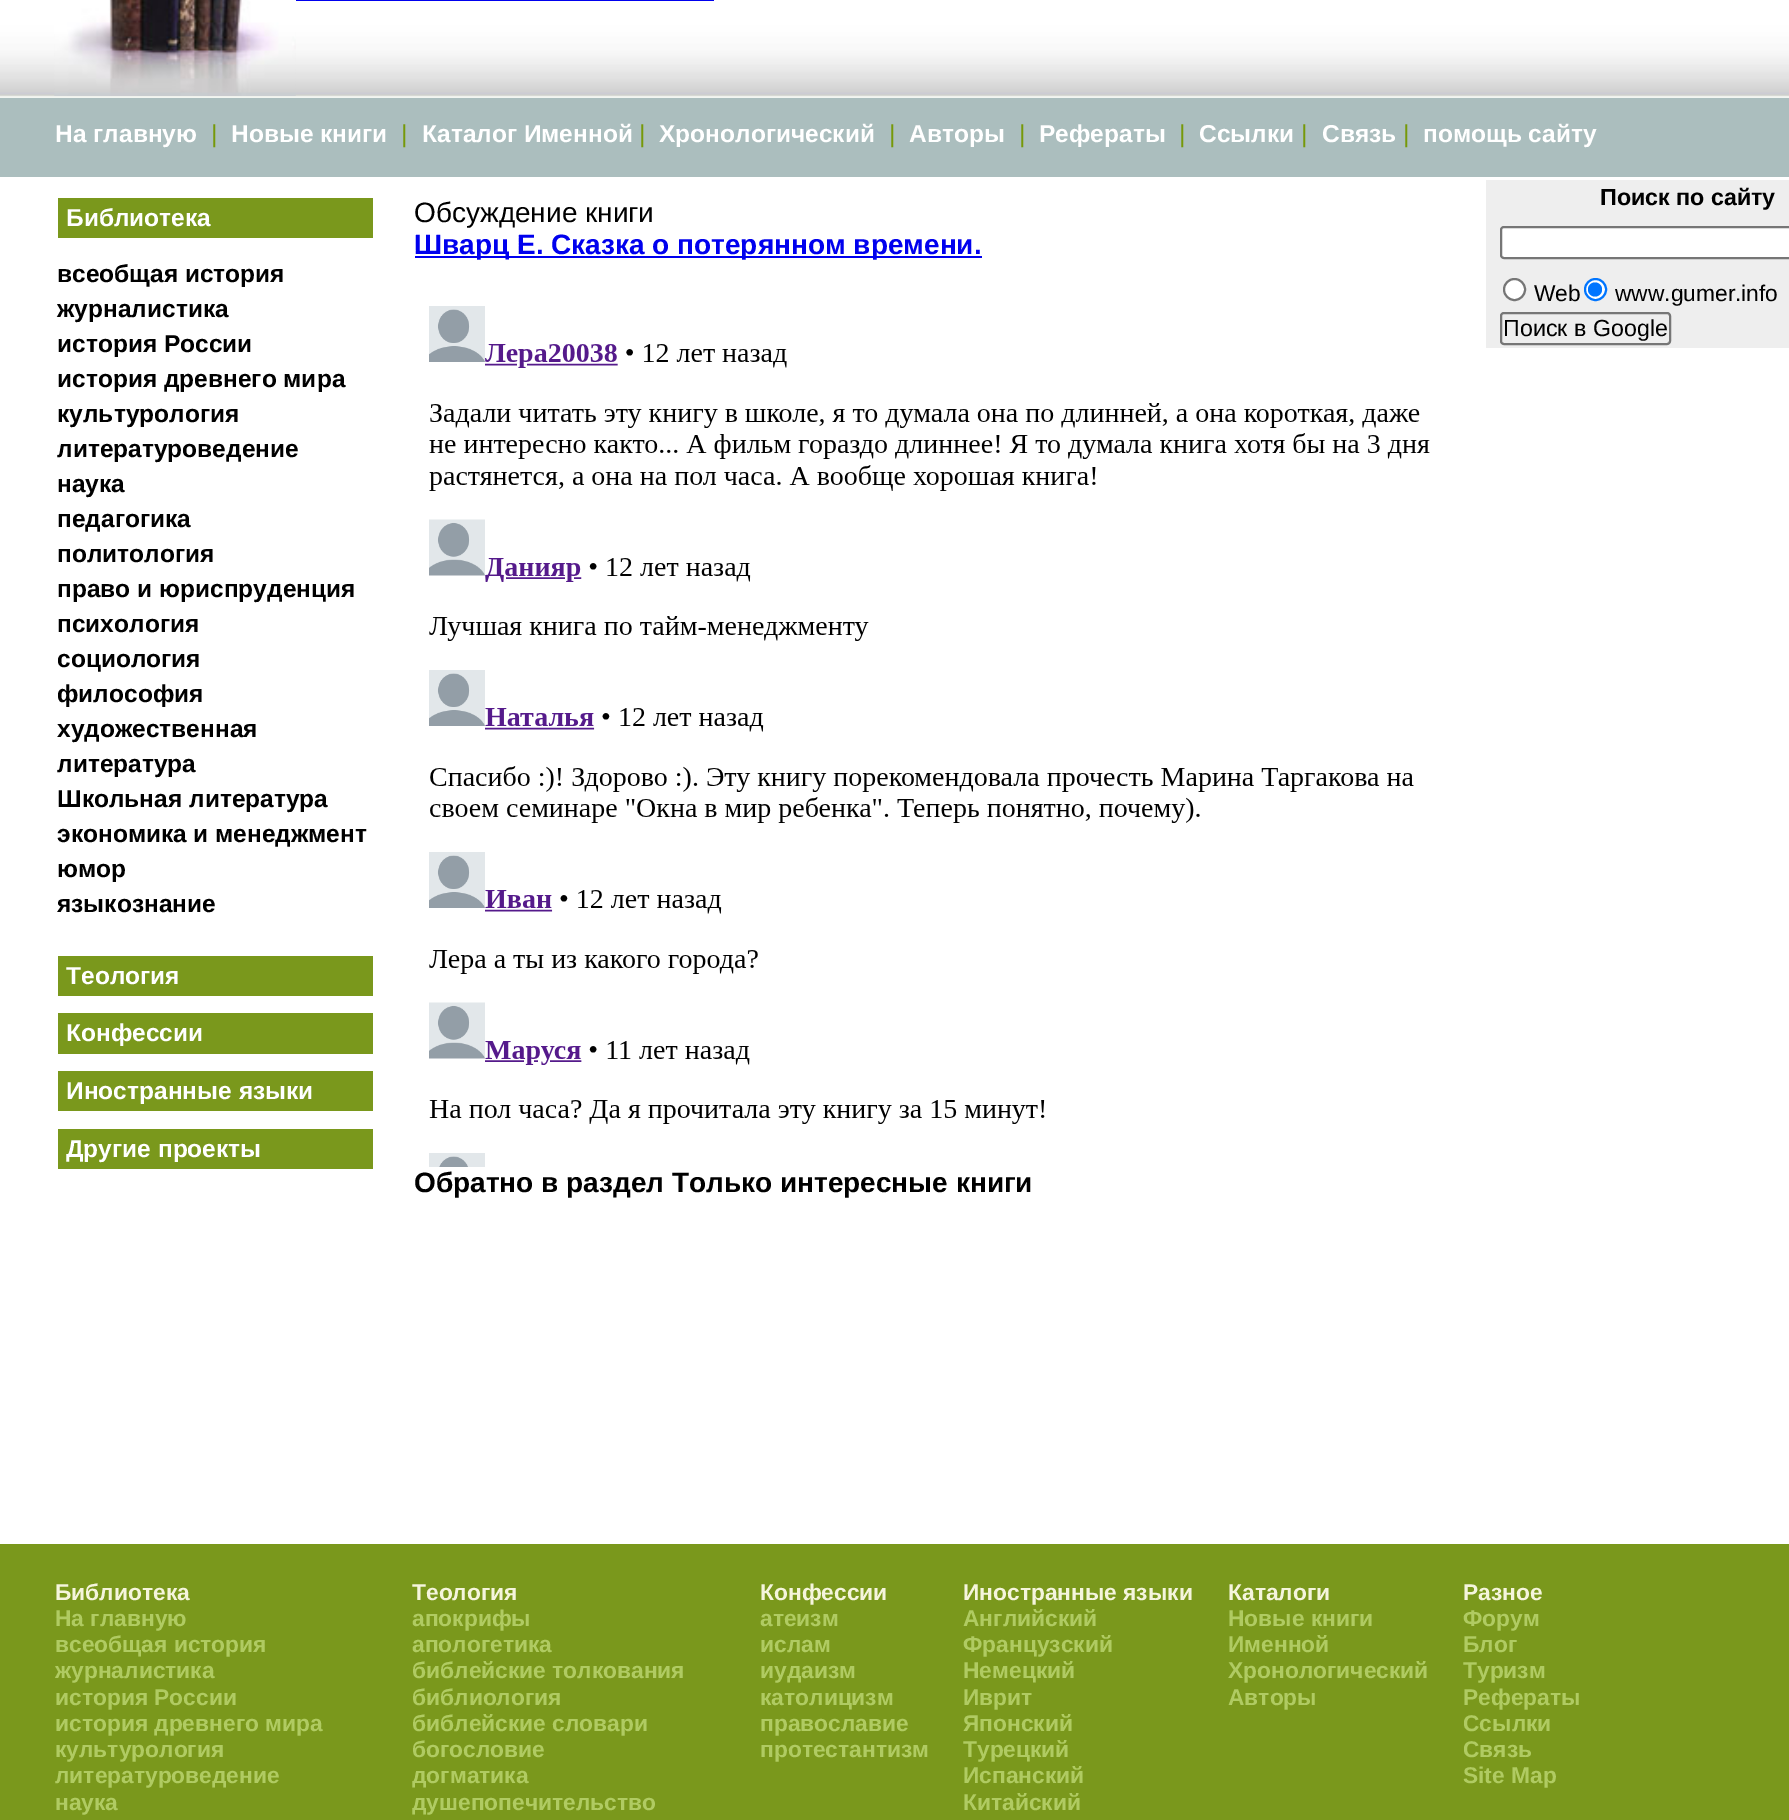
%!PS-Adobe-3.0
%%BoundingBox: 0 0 1789 1820
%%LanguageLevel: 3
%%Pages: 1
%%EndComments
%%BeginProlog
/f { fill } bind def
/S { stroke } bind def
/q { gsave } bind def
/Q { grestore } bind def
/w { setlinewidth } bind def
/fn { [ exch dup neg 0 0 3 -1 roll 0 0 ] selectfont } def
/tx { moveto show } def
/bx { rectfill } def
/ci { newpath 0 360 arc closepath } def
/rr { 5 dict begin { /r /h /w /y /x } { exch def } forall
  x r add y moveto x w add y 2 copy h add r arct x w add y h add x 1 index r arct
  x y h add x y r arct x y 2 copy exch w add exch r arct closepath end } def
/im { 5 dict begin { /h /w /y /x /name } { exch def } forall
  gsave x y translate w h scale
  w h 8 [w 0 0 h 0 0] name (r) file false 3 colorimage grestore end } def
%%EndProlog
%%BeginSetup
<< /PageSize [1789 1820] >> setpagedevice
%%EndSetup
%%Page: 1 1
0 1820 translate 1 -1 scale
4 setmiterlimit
1 setgray
0 0 1789 1820 bx
(image0.raw) 0 0 1789 98 im
(image1.raw) 54 0 242 96 im
0 0 0.933 setrgbcolor
296 0 418 1 bx
0.671 0.745 0.745 setrgbcolor
0 98 1789 79 bx
/LiberationSans-Bold 24.5 fn
1 setgray
(На главную) 55 142 tx
/LiberationSans-Regular 24.5 fn
0.463 0.6 0.035 setrgbcolor
(|) 211 142 tx
/LiberationSans-Bold 24.5 fn
1 setgray
(Новые книги) 231 142 tx
/LiberationSans-Regular 24.5 fn
0.463 0.6 0.035 setrgbcolor
(|) 401 142 tx
/LiberationSans-Bold 24.5 fn
1 setgray
(Каталог Именной) 422 142 tx
/LiberationSans-Regular 24.5 fn
0.463 0.6 0.035 setrgbcolor
(|) 639 142 tx
/LiberationSans-Bold 24.5 fn
1 setgray
(Хронологический) 659 142 tx
/LiberationSans-Regular 24.5 fn
0.463 0.6 0.035 setrgbcolor
(|) 889 142 tx
/LiberationSans-Bold 24.5 fn
1 setgray
(Авторы) 909 142 tx
/LiberationSans-Regular 24.5 fn
0.463 0.6 0.035 setrgbcolor
(|) 1019 142 tx
/LiberationSans-Bold 24.5 fn
1 setgray
(Рефераты) 1039 142 tx
/LiberationSans-Regular 24.5 fn
0.463 0.6 0.035 setrgbcolor
(|) 1179 142 tx
/LiberationSans-Bold 24.5 fn
1 setgray
(Ссылки) 1199 142 tx
/LiberationSans-Regular 24.5 fn
0.463 0.6 0.035 setrgbcolor
(|) 1301 142 tx
/LiberationSans-Bold 24.5 fn
1 setgray
(Связь) 1322 142 tx
/LiberationSans-Regular 24.5 fn
0.463 0.6 0.035 setrgbcolor
(|) 1403 142 tx
/LiberationSans-Bold 24.5 fn
1 setgray
(помощь сайту) 1423 142 tx
0.478 0.596 0.11 setrgbcolor
58 198 315 40 bx
1 setgray
(Библиотека) 66 226 tx
0 setgray
(всеобщая история) 57 282 tx
(журналистика) 57 317 tx
(история России) 57 352 tx
(история древнего мира) 57 387 tx
(культурология) 57 422 tx
(литературоведение) 57 457 tx
(наука) 57 492 tx
(педагогика) 57 527 tx
(политология) 57 562 tx
(право и юриспруденция) 57 597 tx
(психология) 57 632 tx
(социология) 57 667 tx
(философия) 57 702 tx
(художественная) 57 737 tx
(литература) 57 772 tx
(Школьная литература) 57 807 tx
(экономика и менеджмент) 57 842 tx
(юмор) 57 877 tx
(языкознание) 57 912 tx
0.478 0.596 0.11 setrgbcolor
58 956 315 40 bx
1 setgray
(Теология) 66 984 tx
0.478 0.596 0.11 setrgbcolor
58 1013 315 41 bx
1 setgray
(Конфессии) 66 1041 tx
0.478 0.596 0.11 setrgbcolor
58 1071 315 40 bx
1 setgray
(Иностранные языки) 66 1099 tx
0.478 0.596 0.11 setrgbcolor
58 1129 315 40 bx
1 setgray
(Другие проекты) 66 1157 tx
/LiberationSans-Regular 28 fn
0 setgray
(Обсуждение книги) 414 222 tx
0 0 0.933 setrgbcolor
415 256 567 2 bx
/LiberationSans-Bold 28 fn
(Шварц Е. Сказка о потерянном времени.) 414 254 tx
(image2.raw) 429 306 1001 861 im
0 setgray
(Обратно в раздел Только интересные книги) 414 1192 tx
0.933 setgray
1486 180 303 168 bx
/LiberationSans-Bold 23.25 fn
0 setgray
(Поиск по сайту) 1600 205 tx
1 setgray
1501 227 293 31 3 rr q f Q
0.463 setgray
2 w
S
1 setgray
1514.5 289.5 10.5 ci q f Q
0.463 setgray
S
/LiberationSans-Regular 22.75 fn
0 setgray
(Web) 1534 301 tx
1 setgray
1595.5 289.5 10.5 ci q f Q
0 0.459 1 setrgbcolor
S
1595 289.5 7 ci f
0 setgray
(www.gumer.info) 1615 301 tx
0.463 setgray
1501 313 169 31 3 rr S
/LiberationSans-Regular 23.25 fn
0 setgray
(Поиск в Google) 1503 336 tx
0.478 0.596 0.11 setrgbcolor
0 1544 1789 276 bx
/LiberationSans-Bold 22.75 fn
0.961 0.961 0.863 setrgbcolor
(Библиотека) 55 1600 tx
0.69 0.796 0.384 setrgbcolor
(На главную) 55 1626 tx
(всеобщая история) 55 1652 tx
(журналистика) 55 1678 tx
(история России) 55 1705 tx
(история древнего мира) 55 1731 tx
(культурология) 55 1757 tx
(литературоведение) 55 1783 tx
(наука) 55 1810 tx
0.961 0.961 0.863 setrgbcolor
(Теология) 412 1600 tx
0.69 0.796 0.384 setrgbcolor
(апокрифы) 412 1626 tx
(апологетика) 412 1652 tx
(библейские толкования) 412 1678 tx
(библиология) 412 1705 tx
(библейские словари) 412 1731 tx
(богословие) 412 1757 tx
(догматика) 412 1783 tx
(душепопечительство) 412 1810 tx
0.961 0.961 0.863 setrgbcolor
(Конфессии) 760 1600 tx
0.69 0.796 0.384 setrgbcolor
(атеизм) 760 1626 tx
(ислам) 760 1652 tx
(иудаизм) 760 1678 tx
(католицизм) 760 1705 tx
(православие) 760 1731 tx
(протестантизм) 760 1757 tx
0.961 0.961 0.863 setrgbcolor
(Иностранные языки) 963 1600 tx
0.69 0.796 0.384 setrgbcolor
(Английский) 963 1626 tx
(Французский) 963 1652 tx
(Немецкий) 963 1678 tx
(Иврит) 963 1705 tx
(Японский) 963 1731 tx
(Турецкий) 963 1757 tx
(Испанский) 963 1783 tx
(Китайский) 963 1810 tx
0.961 0.961 0.863 setrgbcolor
(Каталоги) 1228 1600 tx
0.69 0.796 0.384 setrgbcolor
(Новые книги) 1228 1626 tx
(Именной) 1228 1652 tx
(Хронологический) 1228 1678 tx
(Авторы) 1228 1705 tx
0.961 0.961 0.863 setrgbcolor
(Разное) 1463 1600 tx
0.69 0.796 0.384 setrgbcolor
(Форум) 1463 1626 tx
(Блог) 1463 1652 tx
(Туризм) 1463 1678 tx
(Рефераты) 1463 1705 tx
(Ссылки) 1463 1731 tx
(Связь) 1463 1757 tx
(Site Map) 1463 1783 tx
showpage
%%EOF
